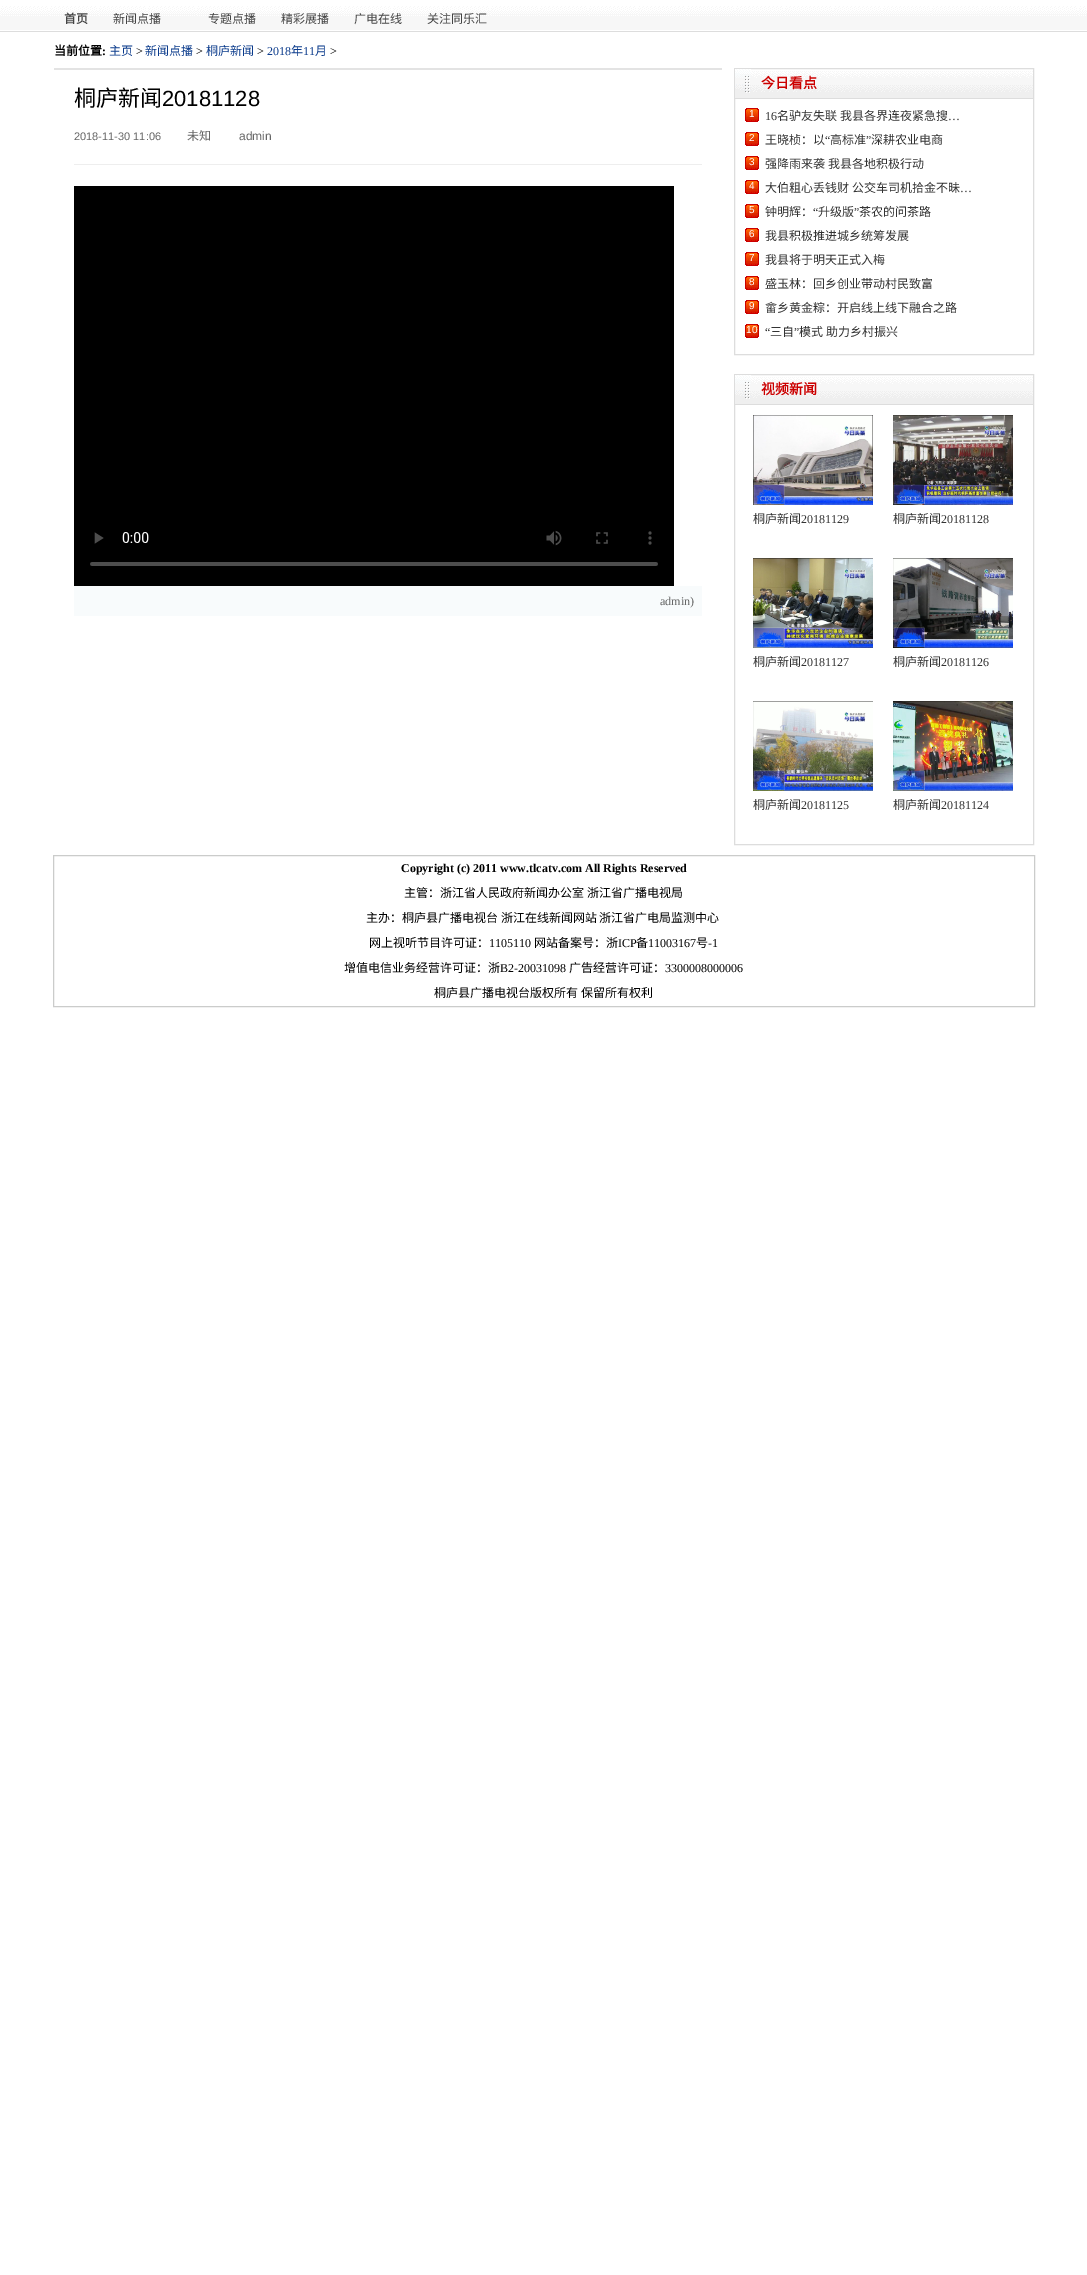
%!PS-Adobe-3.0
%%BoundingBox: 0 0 1087 2275
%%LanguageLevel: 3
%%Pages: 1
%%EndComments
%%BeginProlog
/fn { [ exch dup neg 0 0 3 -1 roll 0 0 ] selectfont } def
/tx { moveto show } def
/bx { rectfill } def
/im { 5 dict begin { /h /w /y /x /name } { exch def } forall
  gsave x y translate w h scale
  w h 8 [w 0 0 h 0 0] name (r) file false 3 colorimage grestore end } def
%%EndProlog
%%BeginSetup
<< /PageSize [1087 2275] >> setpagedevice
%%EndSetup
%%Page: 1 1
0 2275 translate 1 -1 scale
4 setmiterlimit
1 setgray
0 0 1087 2275 bx
(image0.raw) 0 6 1087 26 im
/NotoSansCJKSC-Bold 12 fn
0.267 setgray
(首页) 64 23 tx
/NotoSansCJKSC-Regular 12 fn
(新闻点播) 113 23 tx
(专题点播) 208 23 tx
(精彩展播) 281 23 tx
(广电在线) 354 23 tx
(关注同乐汇) 427 23 tx
/NotoSansCJKSC-Bold 12 fn
0 setgray
(当前位置) 54 55 tx
/LiberationSerif-Bold 12 fn
(:) 102 55 tx
/NotoSansCJKSC-Regular 12 fn
0.043 0.231 0.549 setrgbcolor
(主页) 109 55 tx
/LiberationSerif-Regular 12 fn
0 setgray
(>) 136 55 tx
/NotoSansCJKSC-Regular 12 fn
0.043 0.231 0.549 setrgbcolor
(新闻点播) 145 55 tx
/LiberationSerif-Regular 12 fn
0 setgray
(>) 196 55 tx
/NotoSansCJKSC-Regular 12 fn
0.043 0.231 0.549 setrgbcolor
(桐庐新闻) 206 55 tx
/LiberationSerif-Regular 12 fn
0 setgray
(>) 257 55 tx
0.043 0.231 0.549 setrgbcolor
(2018) 267 55 tx
/NotoSansCJKSC-Regular 12 fn
(年) 291 55 tx
/LiberationSerif-Regular 12 fn
(11) 303 55 tx
/NotoSansCJKSC-Regular 12 fn
(月) 315 55 tx
/LiberationSerif-Regular 12 fn
0 setgray
(>) 330 55 tx
0.89 setgray
54 68 668 2 bx
/NotoSansCJKSC-Regular 22 fn
0 setgray
(桐庐新闻) 74 106 tx
/LiberationSans-Regular 22 fn
(20181128) 162 106 tx
/LiberationSans-Regular 11 fn
0.4 setgray
(2018-11-30 11:06) 74 140 tx
/NotoSansCJKSC-Regular 12 fn
(未知) 187 140 tx
/LiberationSans-Regular 12 fn
(admin) 239 140 tx
0.933 setgray
74 164 628 1 bx
0 setgray
74 186 600 400 bx
(image1.raw) 90 530 568 36 im
0.973 0.984 0.988 setrgbcolor
74 586 628 30 bx
/LiberationSerif-Regular 12 fn
0.4 setgray
(admin\)) 660 605 tx
0.867 setgray
734.5 68.5 299 286 rectstroke
(image2.raw) 735 71 298 28 im
(image3.raw) 735 69 16 24 im
/NotoSansCJKSC-Bold 14 fn
0.8 0 0 setrgbcolor
(今日看点) 761 88 tx
(image4.raw) 745 108 14 14 im
/LiberationSans-Regular 10 fn
1 setgray
(1) 749 117 tx
/LiberationSerif-Regular 12 fn
0.2 setgray
(16) 765 120 tx
/NotoSansCJKSC-Regular 12 fn
(名驴友失联 我县各界连夜紧急搜) 777 120 tx
/LiberationSerif-Regular 12 fn
(…) 948 120 tx
(image4.raw) 745 132 14 14 im
/LiberationSans-Regular 10 fn
1 setgray
(2) 749 141 tx
/NotoSansCJKSC-Regular 12 fn
0.2 setgray
(王晓桢：以) 765 144 tx
/LiberationSerif-Regular 12 fn
(“) 825 144 tx
/NotoSansCJKSC-Regular 12 fn
(高标准) 830 144 tx
/LiberationSerif-Regular 12 fn
(”) 866 144 tx
/NotoSansCJKSC-Regular 12 fn
(深耕农业电商) 871 144 tx
(image4.raw) 745 156 14 14 im
/LiberationSans-Regular 10 fn
1 setgray
(3) 749 165 tx
/NotoSansCJKSC-Regular 12 fn
0.2 setgray
(强降雨来袭 我县各地积极行动) 765 168 tx
(image4.raw) 745 180 14 14 im
/LiberationSans-Regular 10 fn
1 setgray
(4) 749 189 tx
/NotoSansCJKSC-Regular 12 fn
0.2 setgray
(大伯粗心丢钱财 公交车司机拾金不昧) 765 192 tx
/LiberationSerif-Regular 12 fn
(…) 960 192 tx
(image4.raw) 745 204 14 14 im
/LiberationSans-Regular 10 fn
1 setgray
(5) 749 213 tx
/NotoSansCJKSC-Regular 12 fn
0.2 setgray
(钟明辉：) 765 216 tx
/LiberationSerif-Regular 12 fn
(“) 813 216 tx
/NotoSansCJKSC-Regular 12 fn
(升级版) 818 216 tx
/LiberationSerif-Regular 12 fn
(”) 854 216 tx
/NotoSansCJKSC-Regular 12 fn
(茶农的问茶路) 859 216 tx
(image4.raw) 745 228 14 14 im
/LiberationSans-Regular 10 fn
1 setgray
(6) 749 237 tx
/NotoSansCJKSC-Regular 12 fn
0.2 setgray
(我县积极推进城乡统筹发展) 765 240 tx
(image4.raw) 745 252 14 14 im
/LiberationSans-Regular 10 fn
1 setgray
(7) 749 261 tx
/NotoSansCJKSC-Regular 12 fn
0.2 setgray
(我县将于明天正式入梅) 765 264 tx
(image4.raw) 745 276 14 14 im
/LiberationSans-Regular 10 fn
1 setgray
(8) 749 285 tx
/NotoSansCJKSC-Regular 12 fn
0.2 setgray
(盛玉林：回乡创业带动村民致富) 765 288 tx
(image4.raw) 745 300 14 14 im
/LiberationSans-Regular 10 fn
1 setgray
(9) 749 309 tx
/NotoSansCJKSC-Regular 12 fn
0.2 setgray
(畲乡黄金粽：开启线上线下融合之路) 765 312 tx
(image4.raw) 745 324 14 14 im
/LiberationSans-Regular 10 fn
1 setgray
(10) 746 333 tx
/LiberationSerif-Regular 12 fn
0.2 setgray
(“) 765 336 tx
/NotoSansCJKSC-Regular 12 fn
(三自) 770 336 tx
/LiberationSerif-Regular 12 fn
(”) 794 336 tx
/NotoSansCJKSC-Regular 12 fn
(模式 助力乡村振兴) 799 336 tx
0.867 setgray
734.5 374.5 299 470 rectstroke
(image2.raw) 735 377 298 28 im
(image3.raw) 735 375 16 24 im
/NotoSansCJKSC-Bold 14 fn
0.8 0 0 setrgbcolor
(视频新闻) 761 394 tx
(image5.raw) 753 415 120 90 im
/NotoSansCJKSC-Regular 12 fn
0.2 setgray
(桐庐新闻) 753 523 tx
/LiberationSerif-Regular 12 fn
(20181129) 801 523 tx
(image6.raw) 893 415 120 90 im
/NotoSansCJKSC-Regular 12 fn
(桐庐新闻) 893 523 tx
/LiberationSerif-Regular 12 fn
(20181128) 941 523 tx
(image7.raw) 753 558 120 90 im
/NotoSansCJKSC-Regular 12 fn
(桐庐新闻) 753 666 tx
/LiberationSerif-Regular 12 fn
(20181127) 801 666 tx
(image8.raw) 893 558 120 90 im
/NotoSansCJKSC-Regular 12 fn
(桐庐新闻) 893 666 tx
/LiberationSerif-Regular 12 fn
(20181126) 941 666 tx
(image9.raw) 753 701 120 90 im
/NotoSansCJKSC-Regular 12 fn
(桐庐新闻) 753 809 tx
/LiberationSerif-Regular 12 fn
(20181125) 801 809 tx
(image10.raw) 893 701 120 90 im
/NotoSansCJKSC-Regular 12 fn
(桐庐新闻) 893 809 tx
/LiberationSerif-Regular 12 fn
(20181124) 941 809 tx
0.796 0.8 0.796 setrgbcolor
53.5 855.5 981 151 rectstroke
/LiberationSerif-Bold 12 fn
0 setgray
(Copyright \(c\) 2011 www.tlcatv.com All Rights Reserved) 401 872 tx
/NotoSansCJKSC-Regular 12 fn
(主管：浙江省人民政府新闻办公室 浙江省广播电视局) 404 897 tx
(主办：桐庐县广播电视台 浙江在线新闻网站 浙江省广电局监测中心) 366 922 tx
(网上视听节目许可证：) 369 947 tx
/LiberationSerif-Regular 12 fn
(1105110) 489 947 tx
/NotoSansCJKSC-Regular 12 fn
(网站备案号：浙) 534 947 tx
/LiberationSerif-Regular 12 fn
(ICP) 618 947 tx
/NotoSansCJKSC-Regular 12 fn
(备) 636 947 tx
/LiberationSerif-Regular 12 fn
(11003167) 648 947 tx
/NotoSansCJKSC-Regular 12 fn
(号) 696 947 tx
/LiberationSerif-Regular 12 fn
(-1) 708 947 tx
/NotoSansCJKSC-Regular 12 fn
(增值电信业务经营许可证：浙) 344 972 tx
/LiberationSerif-Regular 12 fn
(B2-20031098) 500 972 tx
/NotoSansCJKSC-Regular 12 fn
(广告经营许可证：) 569 972 tx
/LiberationSerif-Regular 12 fn
(3300008000006) 665 972 tx
/NotoSansCJKSC-Regular 12 fn
(桐庐县广播电视台版权所有 保留所有权利) 434 997 tx
showpage
%%EOF
